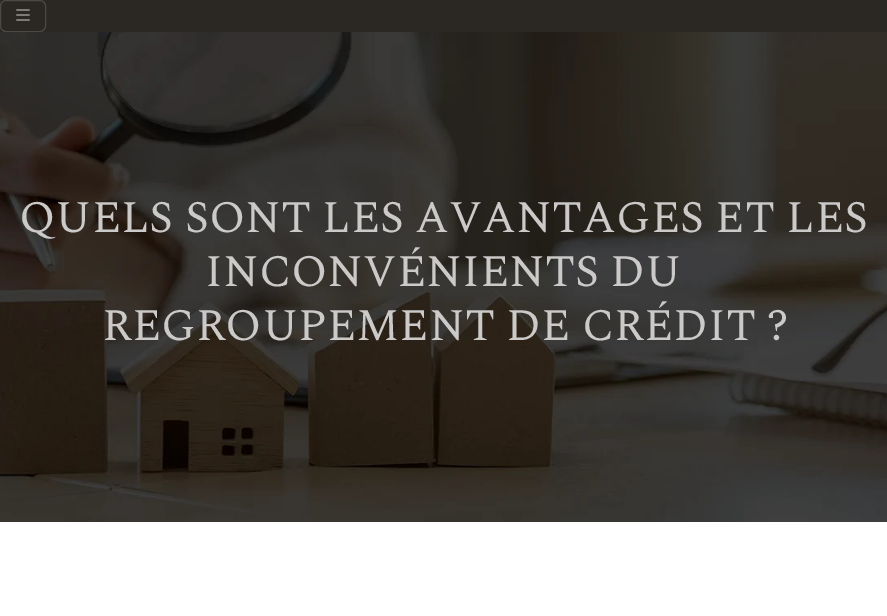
%!PS-Adobe-3.0
%%BoundingBox: 0 0 887 616
%%LanguageLevel: 3
%%Pages: 1
%%EndComments
%%BeginProlog
/S { stroke } bind def
/fn { [ exch dup neg 0 0 3 -1 roll 0 0 ] selectfont } def
/tx { moveto show } def
/bx { rectfill } def
/rr { 5 dict begin { /r /h /w /y /x } { exch def } forall
  x r add y moveto x w add y 2 copy h add r arct x w add y h add x 1 index r arct
  x y h add x y r arct x y 2 copy exch w add exch r arct closepath end } def
/im { 5 dict begin { /h /w /y /x /name } { exch def } forall
  gsave x y translate w h scale
  w h 8 [w 0 0 h 0 0] name (r) file false 3 colorimage grestore end } def
%%EndProlog
%%BeginSetup
<< /PageSize [887 616] >> setpagedevice
%%EndSetup
%%Page: 1 1
0 616 translate 1 -1 scale
4 setmiterlimit
1 setgray
0 0 887 616 bx
0.169 0.157 0.141 setrgbcolor
0 0 887 32 bx
0.294 0.282 0.271 setrgbcolor
0.5 0.5 45 31 5.5 rr S
(image0.raw) 16 9 14 12 im
(image1.raw) 0 32 887 490 im
/SpectralSC-Regular 45 fn
0.796 0.792 0.788 setrgbcolor
(QUELS SONT LES AVANTAGES ET LES) 19 232 tx
(INCONVÉNIENTS DU) 205 286 tx
(REGROUPEMENT DE CRÉDIT ?) 102 340 tx
showpage
%%EOF
